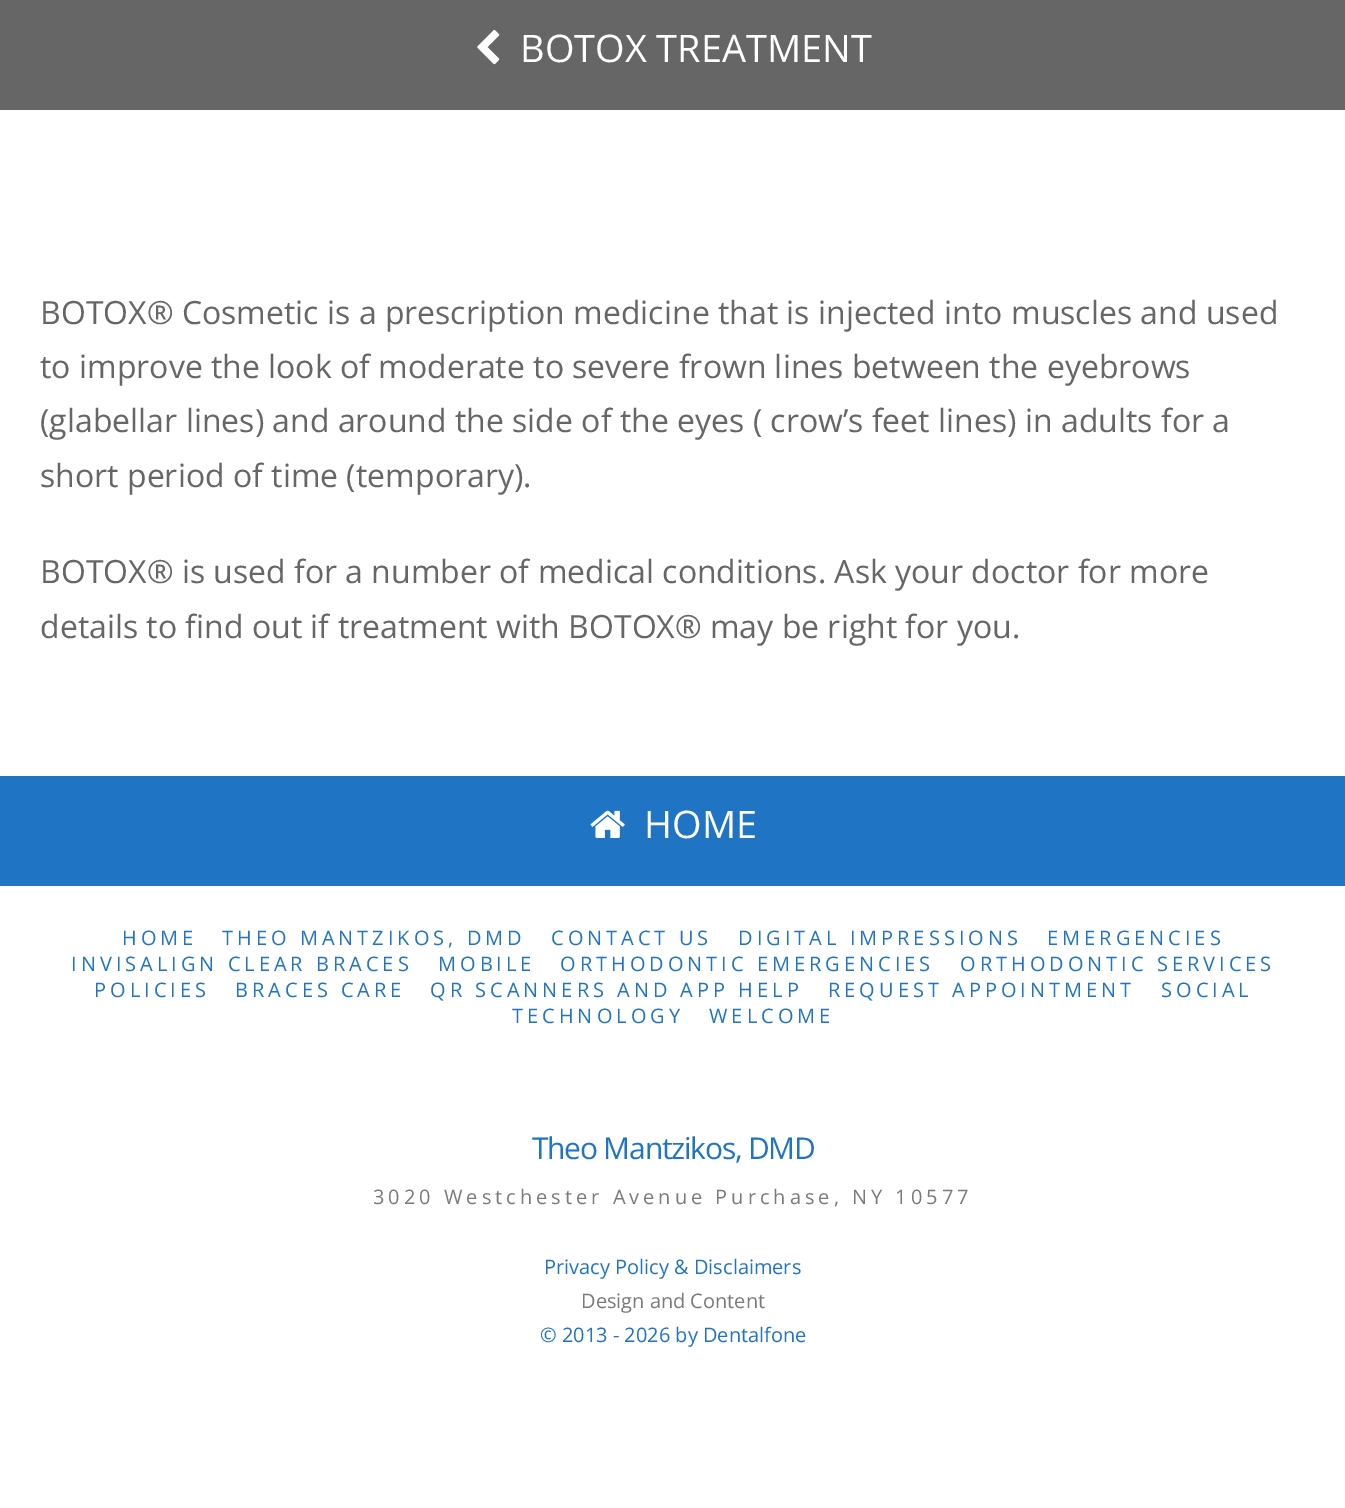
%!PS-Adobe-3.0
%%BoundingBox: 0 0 1345 1508
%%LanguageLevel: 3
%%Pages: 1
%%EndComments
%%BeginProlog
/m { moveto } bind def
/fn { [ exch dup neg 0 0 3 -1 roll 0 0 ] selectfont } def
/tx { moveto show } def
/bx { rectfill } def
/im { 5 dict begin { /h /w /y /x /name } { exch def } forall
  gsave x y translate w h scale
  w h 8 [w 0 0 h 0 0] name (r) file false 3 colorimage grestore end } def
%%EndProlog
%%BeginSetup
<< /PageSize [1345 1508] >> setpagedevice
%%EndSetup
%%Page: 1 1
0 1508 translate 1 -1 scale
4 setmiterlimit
1 setgray
0 0 1345 1508 bx
0.4 setgray
0 0 1345 110 bx
(image0.raw) 477 30 23 35 im
/OpenSans-Regular 38 fn
1 setgray
(BOTOX TREATMENT) 520 62 tx
/OpenSans-Regular 32 fn
0.4 setgray
(BOTOX® Cosmetic is a prescription medicine that is injected into muscles and used) 40 324 tx
(to improve the look of moderate to severe frown lines between the eyebrows) 40 378 tx
(\(glabellar lines\) and around the side of the eyes \( crow’s feet lines\) in adults for a) 40 432 tx
(short period of time \(temporary\).) 40 487 tx
(BOTOX® is used for a number of medical conditions. Ask your doctor for more) 40 583 tx
(details to find out if treatment with BOTOX® may be right for you.) 40 638 tx
0.122 0.455 0.765 setrgbcolor
0 776 1345 110 bx
(image1.raw) 590 810 35 28 im
/OpenSans-Regular 38 fn
1 setgray
(HOME) 644 838 tx
/OpenSans-Regular 20 fn
0.122 0.455 0.765 setrgbcolor
122 945 m 4 0 (HOME) ashow
222 945 m 4 0 (THEO MANTZIKOS, DMD) ashow
551 945 m 4 0 (CONTACT US) ashow
738 945 m 4 0 (DIGITAL IMPRESSIONS) ashow
1047 945 m 4 0 (EMERGENCIES) ashow
71 971 m 4 0 (INVISALIGN CLEAR BRACES) ashow
438 971 m 4 0 (MOBILE) ashow
560 971 m 4 0 (ORTHODONTIC EMERGENCIES) ashow
960 971 m 4 0 (ORTHODONTIC SERVICES) ashow
94 997 m 4 0 (POLICIES) ashow
235 997 m 4 0 (BRACES CARE) ashow
430 997 m 4 0 (QR SCANNERS AND APP HELP) ashow
828 997 m 4 0 (REQUEST APPOINTMENT) ashow
1161 997 m 4 0 (SOCIAL) ashow
512 1023 m 4 0 (TECHNOLOGY) ashow
709 1023 m 4 0 (WELCOME) ashow
/OpenSans-Regular 30 fn
532 1159 m -1.25 0 (Theo Mantzikos, DMD) ashow
/OpenSans-Regular 20 fn
0.478 setgray
373 1204 m 4 0 (3020 Westchester Avenue Purchase, NY 10577) ashow
0.122 0.455 0.765 setrgbcolor
(Privacy Policy & Disclaimers) 544 1274 tx
0.478 setgray
(Design and Content) 581 1308 tx
0.122 0.455 0.765 setrgbcolor
(© 2013 - 2026 by Dentalfone) 540 1342 tx
showpage
%%EOF
